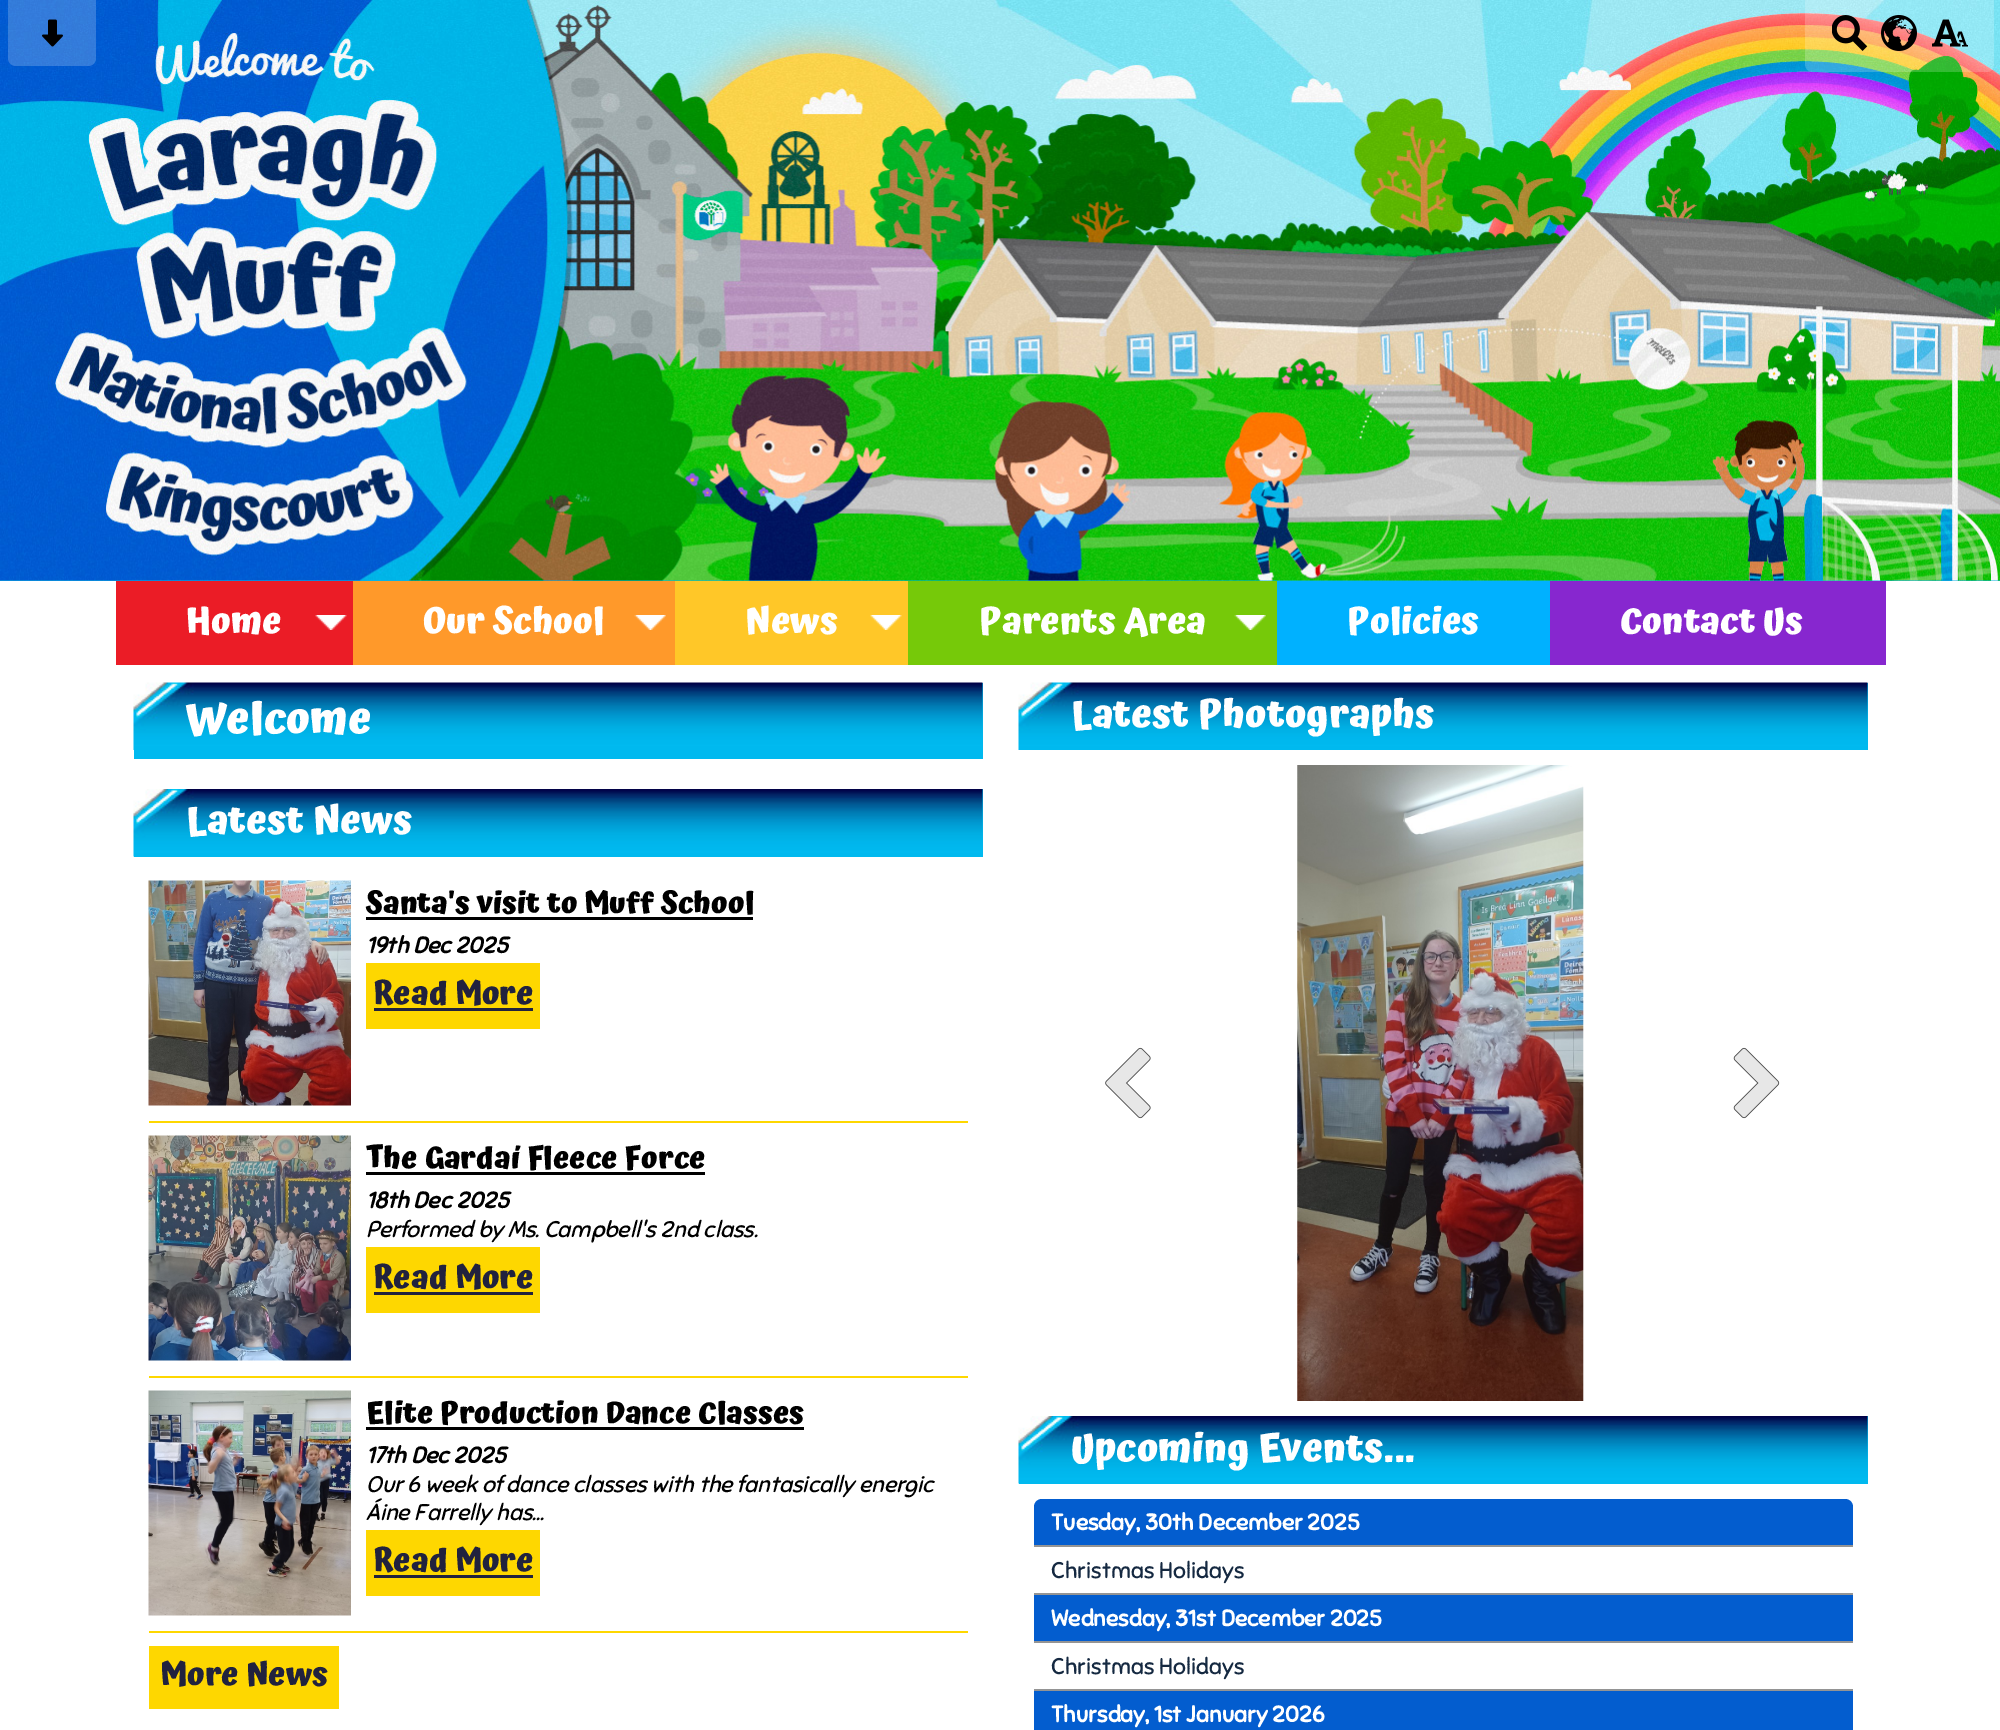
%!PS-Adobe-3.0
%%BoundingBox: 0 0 2000 1730
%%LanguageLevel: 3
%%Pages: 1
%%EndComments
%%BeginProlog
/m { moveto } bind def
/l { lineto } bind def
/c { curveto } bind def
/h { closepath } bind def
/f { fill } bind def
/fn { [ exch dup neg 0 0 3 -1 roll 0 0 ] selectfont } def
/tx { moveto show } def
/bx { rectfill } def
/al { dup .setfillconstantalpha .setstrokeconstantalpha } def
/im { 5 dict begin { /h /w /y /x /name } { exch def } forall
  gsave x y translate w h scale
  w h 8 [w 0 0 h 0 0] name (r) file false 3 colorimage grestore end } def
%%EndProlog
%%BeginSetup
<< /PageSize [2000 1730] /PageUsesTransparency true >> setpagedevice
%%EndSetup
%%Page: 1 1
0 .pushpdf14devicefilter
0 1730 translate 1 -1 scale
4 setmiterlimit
1 setgray
0 0 2000 1730 bx
0.071 0.698 0.894 setrgbcolor
0 580 2000 1 bx
(image0.raw) 0 0 2000 581 im
0.2 al
1 setgray
8 0 m 96 0 l 96 58 l 96 62.5 92.5 66 88 66 c 16 66 l 11.5 66 8 62.5 8 58 c h f
1 al
(image1.raw) 42 19 21 28 im
0.2 al
1805 0 m 1994 0 l 1994 64 l 1994 68.5 1990.5 72 1986 72 c 1813 72 l 1808.5 72 1805 68.5 1805 64 c h f
1 al
(image2.raw) 1832 15 36 36 im
(image3.raw) 1881 15 36 36 im
(image4.raw) 1932 19 36 28 im
0.529 0.153 0.812 setrgbcolor
1550 581 336 84 bx
0.922 0.11 0.149 setrgbcolor
116 581 237 84 bx
(image5.raw) 315 615 32 15 im
/Atma-Bold 36 fn
1 setgray
(Home) 186 633 tx
1 0.6 0.165 setrgbcolor
353 581 322 84 bx
(image6.raw) 634 615 32 15 im
1 setgray
(Our School) 423 633 tx
1 0.78 0.157 setrgbcolor
675 581 233 84 bx
(image7.raw) 870 615 32 15 im
1 setgray
(News) 745 633 tx
0.463 0.788 0.035 setrgbcolor
908 581 369 84 bx
(image8.raw) 1234 615 32 15 im
1 setgray
(Parents Area) 979 633 tx
0 0.694 1 setrgbcolor
1277 581 273 84 bx
1 setgray
(Policies) 1347 633 tx
(Contact Us) 1620 633 tx
0 0.725 0.937 setrgbcolor
134 683 849 76 bx
(image9.raw) 133 682 850 68 im
/Atma-Bold 43.5 fn
1 setgray
(Welcome) 186 733 tx
0 0.725 0.937 setrgbcolor
134 789 849 68 bx
(image10.raw) 133 789 850 68 im
/Atma-Bold 38.75 fn
1 setgray
(Latest News) 186 833 tx
0.996 0.843 0 setrgbcolor
149 1121 819 2 bx
(image11.raw) 148 880 203 226 im
/Atma-Bold 30.1 fn
0 setgray
(Santa's visit to Muff School) 366 913 tx
366 917 387 3 bx
/Sniglet-BoldItalic 22.8 fn
(19th Dec 2025) 366 953 tx
0.996 0.843 0 setrgbcolor
366 963 174 66 bx
/Atma-Bold 32 fn
0.129 0.133 0.243 setrgbcolor
(Read More) 373 1004 tx
374 1008 159 3 bx
0.996 0.843 0 setrgbcolor
149 1376 819 2 bx
(image12.raw) 148 1135 203 226 im
/Atma-Bold 30.1 fn
0 setgray
(The Gardaí Fleece Force) 366 1168 tx
366 1172 339 3 bx
/Sniglet-BoldItalic 22.8 fn
(18th Dec 2025) 366 1208 tx
/Sniglet-Italic 22.8 fn
(Performed by Ms. Campbell's 2nd class.) 366 1237 tx
0.996 0.843 0 setrgbcolor
366 1247 174 66 bx
/Atma-Bold 32 fn
0.129 0.133 0.243 setrgbcolor
(Read More) 373 1288 tx
374 1292 159 3 bx
0.996 0.843 0 setrgbcolor
149 1631 819 2 bx
(image13.raw) 148 1390 203 226 im
/Atma-Bold 30.1 fn
0 setgray
(Elite Production Dance Classes) 366 1423 tx
366 1427 438 3 bx
/Sniglet-BoldItalic 22.8 fn
(17th Dec 2025) 366 1463 tx
/Sniglet-Italic 22.8 fn
(Our 6 week of dance classes with the fantasically energic) 366 1492 tx
(Áine Farrelly has...) 366 1520 tx
0.996 0.843 0 setrgbcolor
366 1530 174 66 bx
/Atma-Bold 32 fn
0.129 0.133 0.243 setrgbcolor
(Read More) 373 1571 tx
374 1575 159 3 bx
0.996 0.843 0 setrgbcolor
149 1646 190 63 bx
0.129 0.133 0.243 setrgbcolor
(More News) 160 1685 tx
0 0.725 0.937 setrgbcolor
1867 683 1 67 bx
(image9.raw) 1018 682 850 68 im
/Atma-Bold 38.75 fn
1 setgray
(Latest Photographs) 1071 727 tx
(image14.raw) 1105 1047 46 72 im
(image15.raw) 1297 765 287 636 im
(image16.raw) 1733 1047 47 72 im
0 0.725 0.937 setrgbcolor
1019 1416 849 68 bx
(image10.raw) 1018 1416 850 68 im
1 setgray
(Upcoming Events...) 1071 1461 tx
0.012 0.365 0.812 setrgbcolor
1042 1499 m 1845 1499 l 1849.5 1499 1853 1502.5 1853 1507 c 1853 1547 l 1034 1547 l 1034 1507 l 1034 1502.5 1037.5 1499 1042 1499 c h f
0.58 setgray
1034 1545 819 2 bx
/Sniglet-Bold 22.8 fn
1 setgray
(Tuesday, 30th December 2025) 1051 1530 tx
0.58 setgray
1034 1593 819 2 bx
/Sniglet-Regular 22.8 fn
0.082 0.161 0.255 setrgbcolor
(Christmas Holidays) 1051 1578 tx
0.58 setgray
1034 1641 819 2 bx
0.012 0.365 0.812 setrgbcolor
1034 1595 819 46 bx
/Sniglet-Bold 22.8 fn
1 setgray
(Wednesday, 31st December 2025) 1051 1626 tx
0.58 setgray
1034 1689 819 2 bx
/Sniglet-Regular 22.8 fn
0.082 0.161 0.255 setrgbcolor
(Christmas Holidays) 1051 1674 tx
0.012 0.365 0.812 setrgbcolor
1034 1691 819 39 bx
/Sniglet-Bold 22.8 fn
1 setgray
(Thursday, 1st January 2026) 1051 1722 tx
.poppdf14devicefilter showpage
%%EOF
